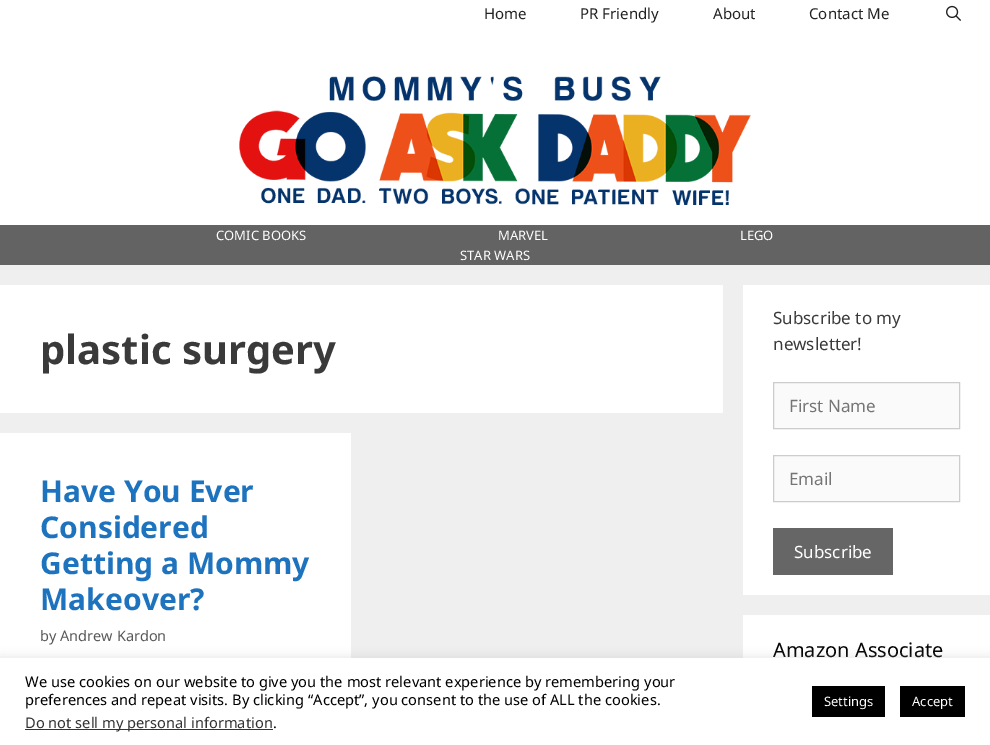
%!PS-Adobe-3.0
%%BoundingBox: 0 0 990 745
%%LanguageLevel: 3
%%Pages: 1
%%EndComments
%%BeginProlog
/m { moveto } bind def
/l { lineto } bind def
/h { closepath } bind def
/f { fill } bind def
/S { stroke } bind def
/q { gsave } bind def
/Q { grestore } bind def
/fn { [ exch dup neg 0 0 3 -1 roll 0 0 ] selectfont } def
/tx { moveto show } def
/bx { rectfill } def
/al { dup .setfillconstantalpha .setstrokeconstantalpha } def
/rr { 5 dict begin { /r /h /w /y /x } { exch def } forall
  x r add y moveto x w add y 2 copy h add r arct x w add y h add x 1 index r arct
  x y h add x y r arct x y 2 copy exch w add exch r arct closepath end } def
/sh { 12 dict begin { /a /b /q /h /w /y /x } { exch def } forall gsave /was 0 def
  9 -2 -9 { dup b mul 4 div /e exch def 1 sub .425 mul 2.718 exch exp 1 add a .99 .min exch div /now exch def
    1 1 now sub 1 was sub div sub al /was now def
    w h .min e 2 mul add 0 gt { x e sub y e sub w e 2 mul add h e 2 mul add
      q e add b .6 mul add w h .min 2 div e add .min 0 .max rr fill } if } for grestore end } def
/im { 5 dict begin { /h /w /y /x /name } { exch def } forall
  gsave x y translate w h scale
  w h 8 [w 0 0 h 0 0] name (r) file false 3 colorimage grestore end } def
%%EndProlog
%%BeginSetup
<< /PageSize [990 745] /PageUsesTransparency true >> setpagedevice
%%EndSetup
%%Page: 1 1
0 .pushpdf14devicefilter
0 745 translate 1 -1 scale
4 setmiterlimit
0.937 setgray
0 0 990 745 bx
1 setgray
0 0 990 225 bx
/NotoSans-Regular 15 fn
0.133 setgray
(Home) 484 19 tx
(PR Friendly) 580 19 tx
(About) 713 19 tx
(Contact Me) 809 19 tx
(image0.raw) 946 5 15 16 im
(image1.raw) 239 76 512 129 im
0.388 setgray
0 225 990 40 bx
/NotoSans-Regular 13 fn
1 setgray
(COMIC BOOKS) 216 240 tx
(MARVEL) 498 240 tx
(LEGO) 740 240 tx
(STAR WARS) 460 260 tx
0 285 723 128 bx
/NotoSans-Bold 40 fn
0.227 setgray
(plastic surgery) 40 364 tx
1 setgray
0 433 351 225 bx
/NotoSans-Bold 30 fn
0.118 0.451 0.745 setrgbcolor
(Have You Ever) 40 502 tx
(Considered) 40 538 tx
(Getting a Mommy) 40 574 tx
(Makeover?) 40 610 tx
/NotoSans-Regular 14.5 fn
0.349 setgray
(by Andrew Kardon) 40 641 tx
1 setgray
743 285 247 310 bx
/NotoSans-Regular 17 fn
0.227 setgray
(Subscribe to my) 773 324 tx
(newsletter!) 773 350 tx
0.98 setgray
773.5 382.5 m 959.5 382.5 l 959.5 428.5 l 773.5 428.5 l h q f Q
0.8 setgray
S
0.459 setgray
(First Name) 789 412 tx
0.98 setgray
773.5 455.5 m 959.5 455.5 l 959.5 501.5 l 773.5 501.5 l h q f Q
0.8 setgray
S
0.459 setgray
(Email) 789 485 tx
0.4 setgray
773 528 120 47 bx
1 setgray
(Subscribe) 794 558 tx
743 615 247 43 bx
/NotoSans-Regular 20 fn
0 setgray
(Amazon Associate) 773 657 tx
0.675 0.671 0.671 setrgbcolor
0 657 990 87 0 5 0.3 sh
1 setgray
0 658 990 87 bx
/NotoSans-Regular 14.65 fn
0 setgray
(We use cookies on our website to give you the most relevant experience by remembering your) 25 687 tx
(preferences and repeat visits. By clicking “Accept”, you consent to the use of ALL the cookies.) 25 705 tx
0.2 setgray
25 729 248 1 bx
(Do not sell my personal information) 25 728 tx
0 setgray
(.) 273 728 tx
812 686 73 31 bx
/NotoSans-Regular 13 fn
1 setgray
(Settings) 824 706 tx
0 setgray
900 686 65 31 bx
1 setgray
(Accept) 912 706 tx
.poppdf14devicefilter showpage
%%EOF
